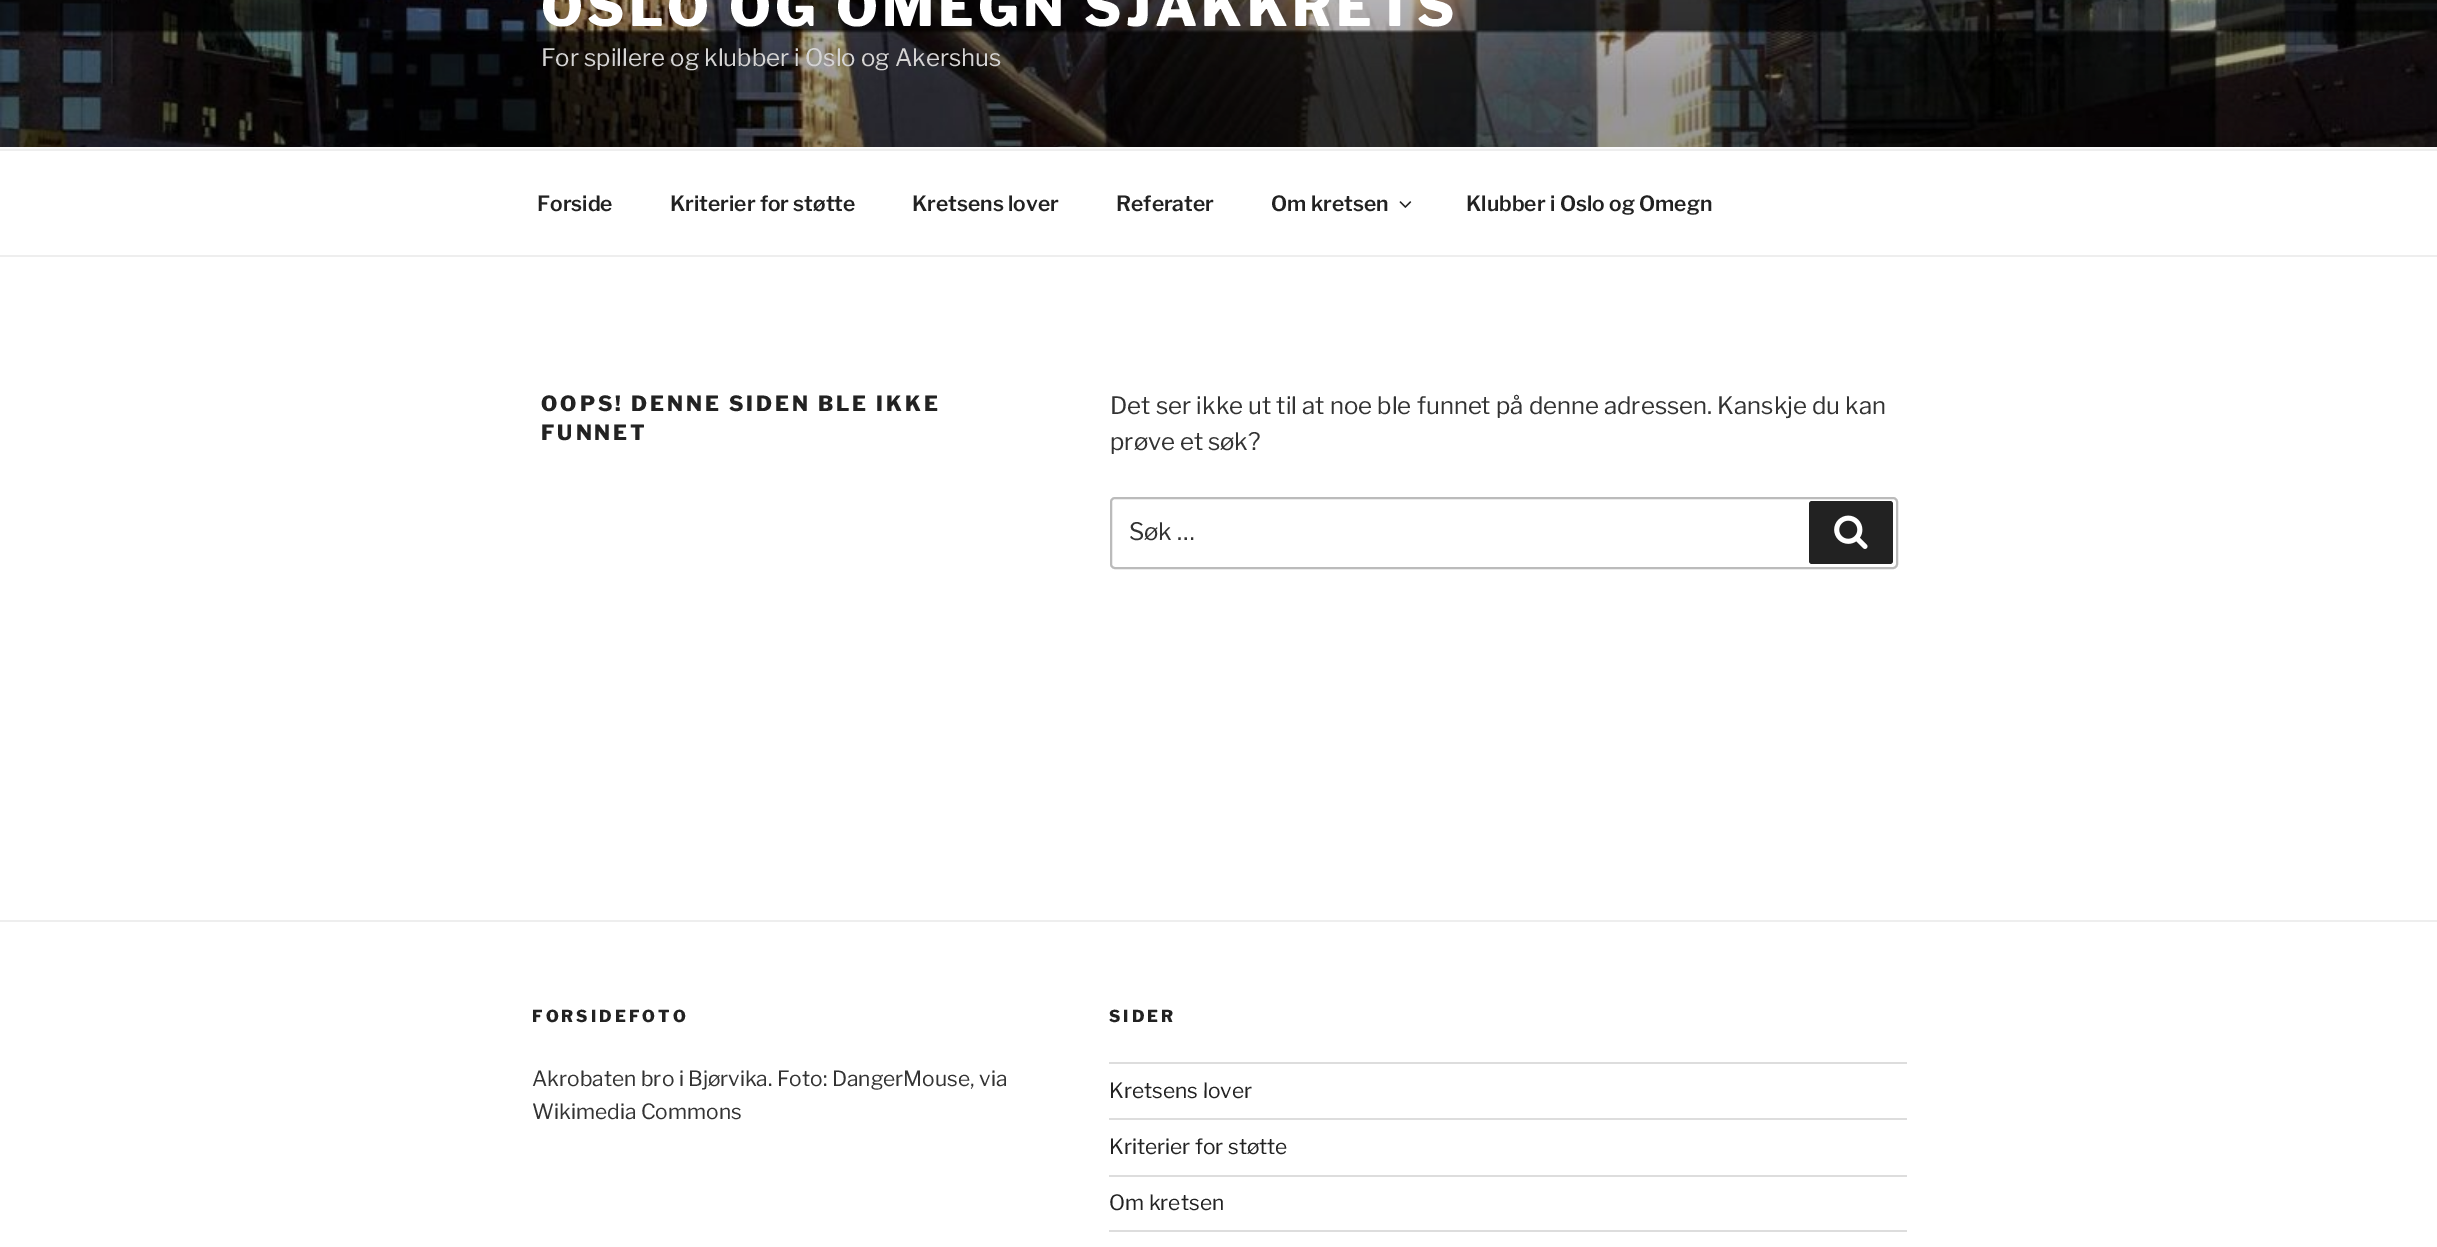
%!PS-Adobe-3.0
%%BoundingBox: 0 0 2437 1247
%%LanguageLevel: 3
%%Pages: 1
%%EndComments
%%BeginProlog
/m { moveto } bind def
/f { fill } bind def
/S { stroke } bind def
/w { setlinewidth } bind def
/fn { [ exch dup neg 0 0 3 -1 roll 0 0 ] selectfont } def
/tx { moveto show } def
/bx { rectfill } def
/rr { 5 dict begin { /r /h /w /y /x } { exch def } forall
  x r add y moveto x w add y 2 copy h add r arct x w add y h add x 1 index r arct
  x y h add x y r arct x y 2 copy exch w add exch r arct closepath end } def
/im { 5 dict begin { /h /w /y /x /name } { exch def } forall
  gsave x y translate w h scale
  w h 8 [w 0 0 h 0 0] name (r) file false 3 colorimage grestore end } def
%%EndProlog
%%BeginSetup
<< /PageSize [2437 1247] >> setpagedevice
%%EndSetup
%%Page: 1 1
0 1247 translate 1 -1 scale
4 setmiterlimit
1 setgray
0 0 2437 1247 bx
0.98 setgray
0 147 2437 2 bx
(image0.raw) 0 0 2437 147 im
/LibreFranklin-Thin 54 fn
1 setgray
541 26 m 4.3 0 (OSLO OG OMEGN SJAKKRETS) ashow
/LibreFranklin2-Thin 24 fn
0.835 0.831 0.831 setrgbcolor
(For spillere og klubber i Oslo og Akershus) 541 66 tx
0.933 setgray
0 149 2437 2 bx
0 255 2437 2 bx
/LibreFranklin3-Thin 21 fn
0.133 setgray
(Forside) 537 211 tx
(Kriterier for støtte) 670 211 tx
(Kretsens lover) 912 211 tx
(Referater) 1116 211 tx
(Om kretsen) 1271 211 tx
(image1.raw) 1399 201 13 7 im
(Klubber i Oslo og Omegn) 1466 211 tx
/LibreFranklin-Thin 21 fn
541 411 m 2.95 0 (OOPS! DENNE SIDEN BLE IKKE) ashow
541 440 m 2.95 0 (FUNNET) ashow
/LibreFranklin2-Thin 24 fn
0.2 setgray
(Det ser ikke ut til at noe ble funnet på denne adressen. Kanskje du kan) 1110 414 tx
(prøve et søk?) 1110 450 tx
0.733 setgray
2 w
1111 498 786 70 4 rr S
0.2 setgray
(Søk …) 1129 540 tx
0.133 setgray
1809 501 84 63 3 rr f
(image2.raw) 1834 515 34 34 im
0.933 setgray
0 920 2437 2 bx
/LibreFranklin-Thin 16.5 fn
0.133 setgray
532 1022 m 3 0 (FORSIDEFOTO) ashow
/LibreFranklin2-Thin 21 fn
0.2 setgray
(Akrobaten bro i Bjørvika. Foto: DangerMouse, via) 532 1086 tx
(Wikimedia Commons) 532 1119 tx
/LibreFranklin-Thin 16.5 fn
0.133 setgray
1109 1022 m 3 0 (SIDER) ashow
0.867 setgray
1109 1062 798 2 bx
1109 1118 798 2 bx
/LibreFranklin2-Thin 21 fn
0.133 setgray
(Kretsens lover) 1109 1098 tx
0.867 setgray
1109 1175 798 2 bx
0.133 setgray
(Kriterier for støtte) 1109 1154 tx
0.867 setgray
1109 1230 798 2 bx
0.133 setgray
(Om kretsen) 1109 1210 tx
showpage
%%EOF
